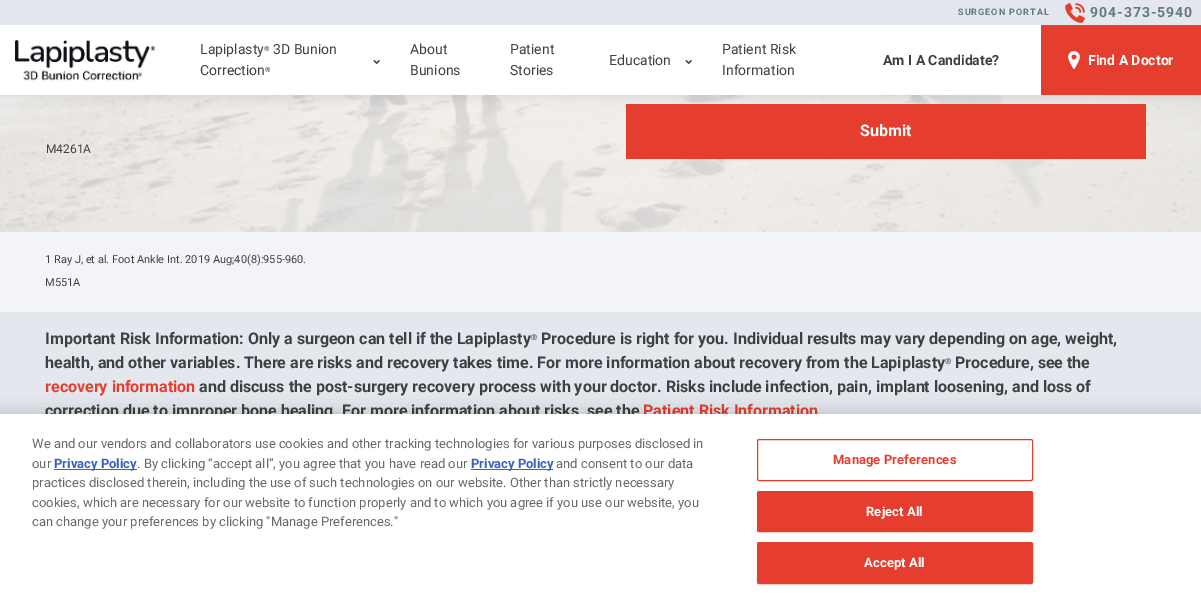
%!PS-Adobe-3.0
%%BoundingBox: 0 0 1201 604
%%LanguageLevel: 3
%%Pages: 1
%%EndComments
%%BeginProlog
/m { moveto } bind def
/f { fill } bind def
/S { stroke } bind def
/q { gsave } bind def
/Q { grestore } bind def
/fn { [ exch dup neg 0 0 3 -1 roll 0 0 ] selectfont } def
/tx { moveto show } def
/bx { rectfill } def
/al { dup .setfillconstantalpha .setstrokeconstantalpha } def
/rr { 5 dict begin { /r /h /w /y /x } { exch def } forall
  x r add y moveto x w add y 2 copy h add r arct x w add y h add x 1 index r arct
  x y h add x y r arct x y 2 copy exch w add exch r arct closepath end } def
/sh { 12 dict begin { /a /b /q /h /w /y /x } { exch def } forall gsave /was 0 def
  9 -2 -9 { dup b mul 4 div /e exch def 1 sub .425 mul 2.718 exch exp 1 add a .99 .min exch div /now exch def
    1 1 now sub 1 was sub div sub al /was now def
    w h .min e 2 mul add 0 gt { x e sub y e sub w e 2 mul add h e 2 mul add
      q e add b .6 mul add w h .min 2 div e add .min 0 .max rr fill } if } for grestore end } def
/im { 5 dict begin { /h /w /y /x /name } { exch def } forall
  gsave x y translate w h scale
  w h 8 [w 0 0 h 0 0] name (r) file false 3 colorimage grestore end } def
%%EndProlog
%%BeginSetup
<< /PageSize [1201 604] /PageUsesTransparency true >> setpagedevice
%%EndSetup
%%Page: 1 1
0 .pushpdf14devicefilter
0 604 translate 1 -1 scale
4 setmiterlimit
1 setgray
0 0 1201 604 bx
(image4.raw) 0 95 1201 137 im
0.898 0.239 0.18 setrgbcolor
626 104 520 55 bx
0.459 0.51 0.565 setrgbcolor
0 3 1201 95 0 6 0.2 sh
0.894 0.906 0.929 setrgbcolor
0 0 1201 25 bx
/Roboto-Bold 9 fn
0.388 0.471 0.514 setrgbcolor
958 15 m 1 0 (SURGEON PORTAL) ashow
(image0.raw) 1065 3 20 20 im
/Roboto-Bold 14 fn
1090 17 m 1 0 (904-373-5940) ashow
1 setgray
0 25 1041 70 bx
(image1.raw) 15 40 140 41 im
/Roboto-Regular 14 fn
0.247 0.247 0.255 setrgbcolor
(Lapiplasty) 200 54 tx
/Roboto-Regular 7 fn
(®) 264 51 tx
/Roboto-Regular 14 fn
(3D Bunion) 273 54 tx
(Correction) 200 75 tx
/Roboto-Regular 7 fn
(®) 265 72 tx
(image2.raw) 373 60 7 4 im
/Roboto-Regular 14 fn
(About) 410 54 tx
(Bunions) 410 75 tx
(Patient) 510 54 tx
(Stories) 510 75 tx
(Education) 609 65 tx
(image2.raw) 685 60 7 4 im
(Patient Risk) 722 54 tx
(Information) 722 75 tx
/Roboto-Bold 14 fn
(Am I A Candidate?) 883 65 tx
0.898 0.239 0.18 setrgbcolor
1041 25 160 70 bx
(image3.raw) 1068 51 12 18 im
1 setgray
(Find A Doctor) 1088 65 tx
/Roboto-Bold 16 fn
(Submit) 860 136 tx
/Roboto-Regular 12 fn
0.247 0.247 0.255 setrgbcolor
(M4261A) 46 153 tx
0.953 0.957 0.969 setrgbcolor
0 232 1201 80 bx
/Roboto-Regular 11 fn
0.247 0.247 0.255 setrgbcolor
(1 Ray J, et al. Foot Ankle Int. 2019 Aug;40\(8\):955-960.) 45 263 tx
(M551A) 45 286 tx
0.894 0.906 0.929 setrgbcolor
0 312 1201 102 bx
/Roboto-Bold 16 fn
0.247 0.247 0.255 setrgbcolor
(Important Risk Information: Only a surgeon can tell if the Lapiplasty) 45 344 tx
/Roboto-Bold 8 fn
(®) 531 340 tx
/Roboto-Bold 16 fn
(Procedure is right for you. Individual results may vary depending on age, weight,) 541 344 tx
(health, and other variables. There are risks and recovery takes time. For more information about recovery from the Lapiplasty) 45 368 tx
/Roboto-Bold 8 fn
(®) 945 364 tx
/Roboto-Bold 16 fn
(Procedure, see the) 955 368 tx
0.898 0.239 0.18 setrgbcolor
(recovery information) 45 392 tx
0.247 0.247 0.255 setrgbcolor
(and discuss the post-surgery recovery process with your doctor. Risks include infection, pain, implant loosening, and loss of) 199 392 tx
(correction due to improper bone healing. For more information about risks, see the) 45 416 tx
0.898 0.239 0.18 setrgbcolor
(Patient Risk Information) 643 416 tx
0 setgray
0 414 1201 190 0 9 0.2 sh
1 setgray
0 414 1201 190 bx
/Roboto-Regular 13 fn
0.412 setgray
(We and our vendors and collaborators use cookies and other tracking technologies for various purposes disclosed in) 32 448 tx
(our) 32 468 tx
0.22 0.376 0.745 setrgbcolor
54 469 83 1 bx
/Roboto-Bold 13 fn
(Privacy Policy) 54 468 tx
/Roboto-Regular 13 fn
0.412 setgray
(. By clicking “accept all”, you agree that you have read our) 137 468 tx
0.22 0.376 0.745 setrgbcolor
471 469 82 1 bx
/Roboto-Bold 13 fn
(Privacy Policy) 471 468 tx
/Roboto-Regular 13 fn
0.412 setgray
(and consent to our data) 556 468 tx
(practices disclosed therein, including the use of such technologies on our website. Other than strictly necessary) 32 487 tx
(cookies, which are necessary for our website to function properly and to which you agree if you use our website, you) 32 507 tx
(can change your preferences by clicking "Manage Preferences.") 32 526 tx
0.898 0.239 0.18 setrgbcolor
757.5 439.5 275 41 1.5 rr S
/Roboto-Bold 13 fn
833 464 m 0.1 0 (Manage Preferences) ashow
757.5 491.5 275 40 1.5 rr q f Q
S
1 setgray
866 516 m 0.1 0 (Reject All) ashow
0.898 0.239 0.18 setrgbcolor
757.5 542.5 275 41 1.5 rr q f Q
S
1 setgray
864 567 m 0.1 0 (Accept All) ashow
.poppdf14devicefilter showpage
%%EOF
